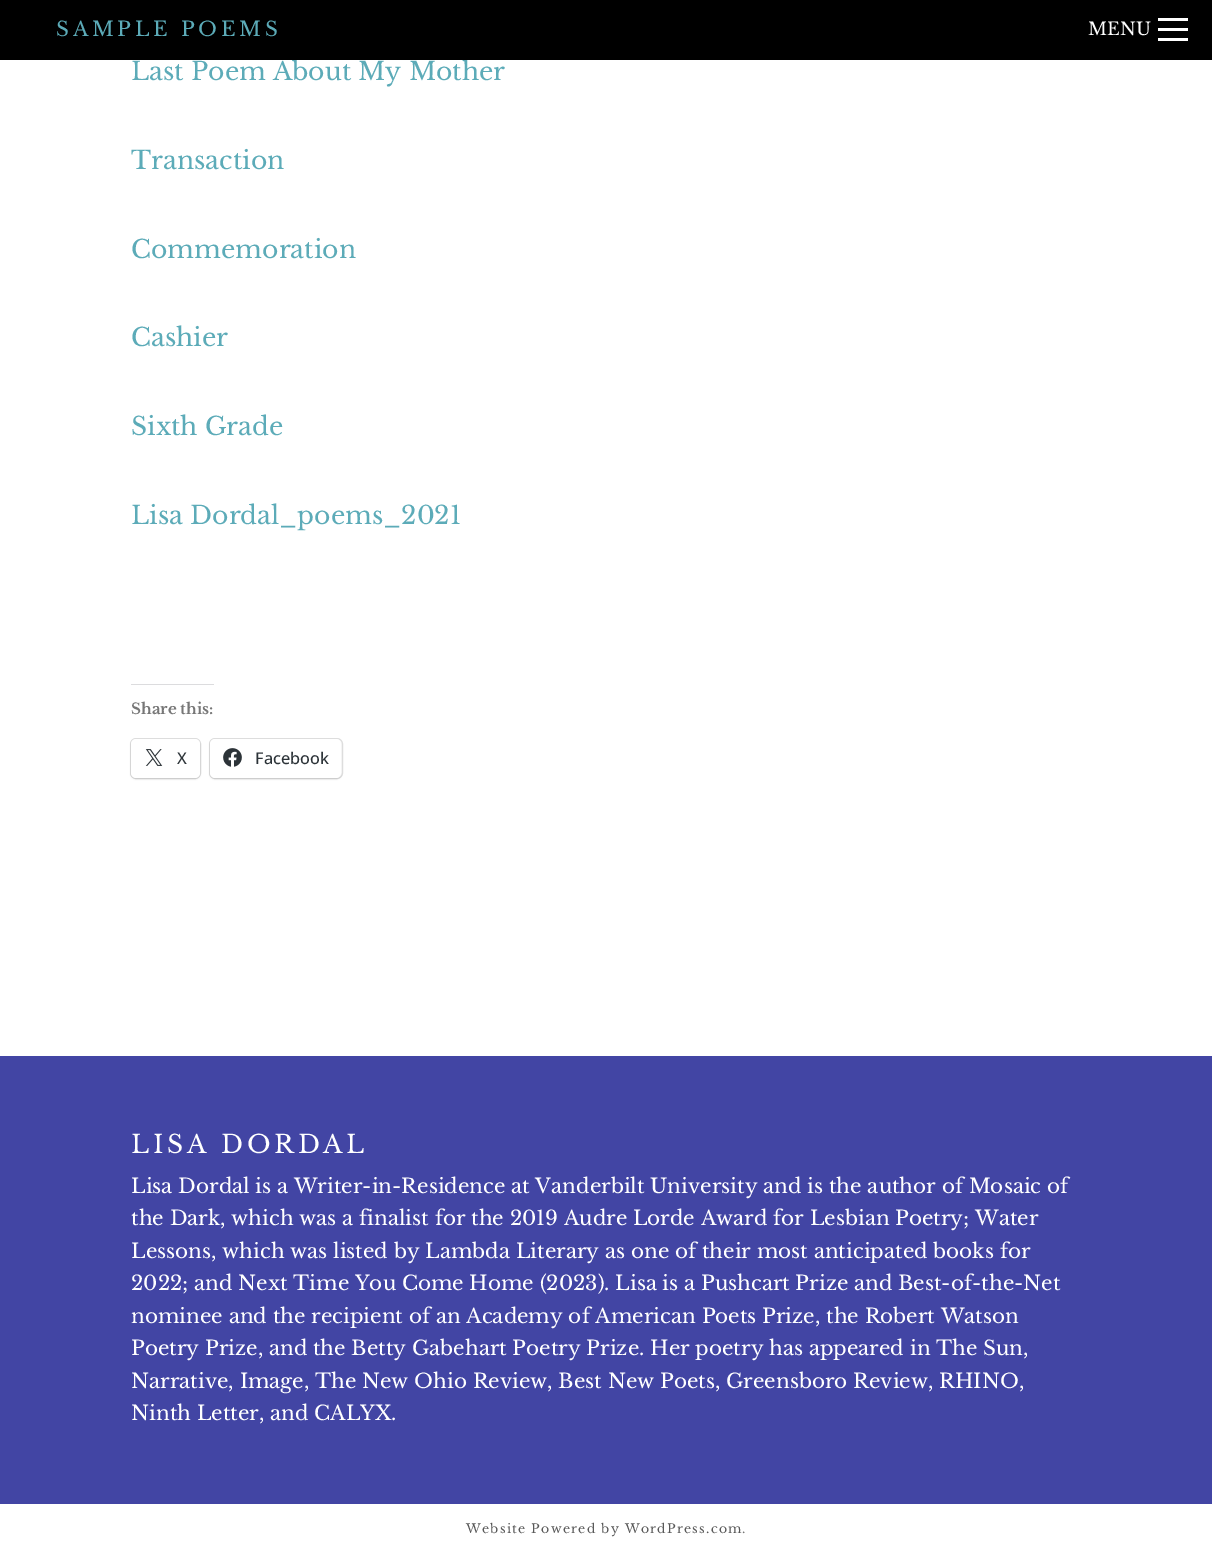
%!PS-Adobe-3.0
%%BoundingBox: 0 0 1212 1552
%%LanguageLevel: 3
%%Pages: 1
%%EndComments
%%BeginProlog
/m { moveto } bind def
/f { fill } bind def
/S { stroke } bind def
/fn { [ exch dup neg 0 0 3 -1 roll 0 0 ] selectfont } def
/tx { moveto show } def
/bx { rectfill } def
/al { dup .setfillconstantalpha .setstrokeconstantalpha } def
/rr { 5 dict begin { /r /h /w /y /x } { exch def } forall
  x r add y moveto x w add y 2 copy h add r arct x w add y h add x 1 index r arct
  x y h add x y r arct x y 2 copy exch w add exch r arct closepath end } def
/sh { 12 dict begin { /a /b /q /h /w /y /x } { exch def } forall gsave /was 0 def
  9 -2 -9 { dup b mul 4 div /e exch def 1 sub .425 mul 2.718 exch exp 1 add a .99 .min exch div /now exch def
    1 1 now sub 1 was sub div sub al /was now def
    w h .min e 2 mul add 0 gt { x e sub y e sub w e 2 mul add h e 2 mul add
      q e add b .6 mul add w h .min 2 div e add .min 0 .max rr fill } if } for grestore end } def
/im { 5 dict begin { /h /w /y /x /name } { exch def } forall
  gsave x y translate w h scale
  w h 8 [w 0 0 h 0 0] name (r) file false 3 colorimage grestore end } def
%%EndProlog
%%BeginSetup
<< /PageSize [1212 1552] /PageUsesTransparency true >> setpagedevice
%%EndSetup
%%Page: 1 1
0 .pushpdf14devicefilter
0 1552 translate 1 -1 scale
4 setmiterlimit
1 setgray
0 0 1212 1552 bx
/LibreBaskerville-Regular 25 fn
0.361 0.671 0.722 setrgbcolor
(Last Poem About My Mother) 131 80 tx
0 setgray
0 0 1212 60 bx
/LibreBaskerville-Regular 20 fn
0.361 0.671 0.722 setrgbcolor
56 36 m 3.75 0 (SAMPLE POEMS) ashow
/LibreBaskerville-Regular 17.5 fn
1 setgray
(MENU) 1088 35 tx
1158 18 30 3 bx
1158 28 30 3 bx
1158 38 30 3 bx
/LibreBaskerville-Regular 25 fn
0.361 0.671 0.722 setrgbcolor
(Transaction) 131 169 tx
(Commemoration) 131 258 tx
(Cashier) 131 346 tx
(Sixth Grade) 131 435 tx
(Lisa Dordal_poems_2021) 131 524 tx
0.863 0.863 0.871 setrgbcolor
131 684 83 1 bx
/LibreBaskerville-Bold 15 fn
0.467 setgray
(Share this:) 131 714 tx
0.878 setgray
130.5 738.5 70 40 5.5 rr S
0 setgray
131 740 69 39 5 1 0.12 sh
1 setgray
131 739 69 39 5 rr f
(image0.raw) 145 749 18 17 im
/OpenSans-Medium 16.25 fn
0.173 0.2 0.22 setrgbcolor
(X) 177 764 tx
0.878 setgray
209.5 738.5 133 40 5.5 rr S
0 setgray
210 740 131 39 5 1 0.12 sh
1 setgray
210 739 131 39 5 rr f
(image1.raw) 223 748 19 19 im
0.173 0.2 0.22 setrgbcolor
(Facebook) 255 764 tx
0.259 0.271 0.643 setrgbcolor
0 1056 1212 448 bx
/LibreBaskerville-Regular 25 fn
1 setgray
131 1153 m 3.75 0 (LISA DORDAL) ashow
/LibreBaskerville-Regular 20 fn
(Lisa Dordal is a Writer-in-Residence at Vanderbilt University and is the author of Mosaic of) 131 1193 tx
(the Dark, which was a finalist for the 2019 Audre Lorde Award for Lesbian Poetry; Water) 131 1225 tx
(Lessons, which was listed by Lambda Literary as one of their most anticipated books for) 131 1258 tx
(2022; and Next Time You Come Home \(2023\). Lisa is a Pushcart Prize and Best-of-the-Net) 131 1290 tx
(nominee and the recipient of an Academy of American Poets Prize, the Robert Watson) 131 1323 tx
(Poetry Prize, and the Betty Gabehart Poetry Prize. Her poetry has appeared in The Sun,) 131 1355 tx
(Narrative, Image, The New Ohio Review, Best New Poets, Greensboro Review, RHINO,) 131 1388 tx
(Ninth Letter, and CALYX.) 131 1420 tx
/LibreBaskerville-Regular 12.5 fn
0.349 setgray
466 1533 m 1.25 0 (Website Powered by WordPress.com) ashow
0.467 setgray
742 1533 m 1.25 0 (.) ashow
.poppdf14devicefilter showpage
%%EOF
